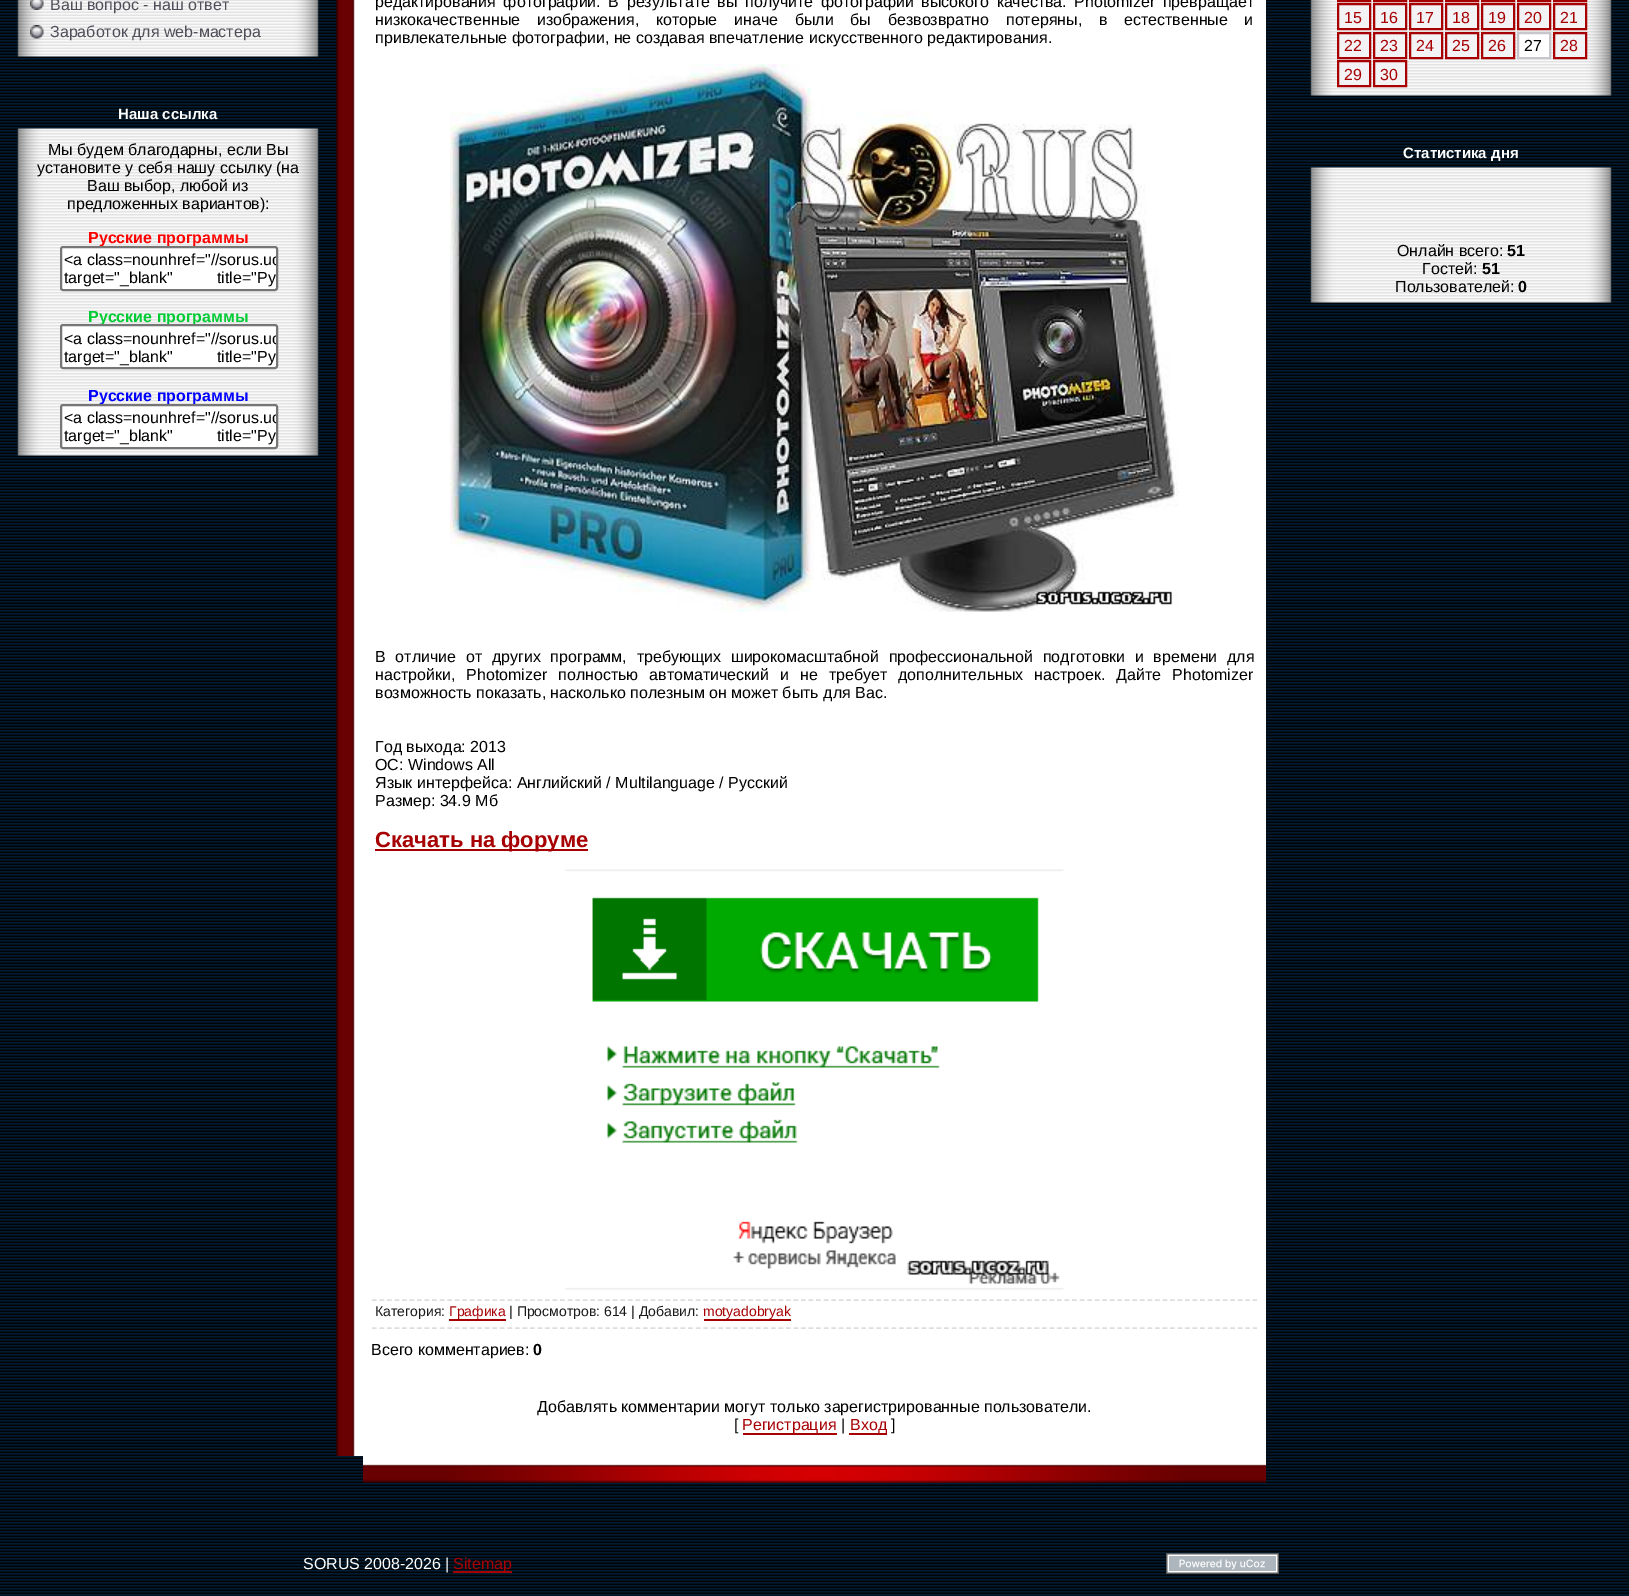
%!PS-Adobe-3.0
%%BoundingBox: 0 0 1629 1596
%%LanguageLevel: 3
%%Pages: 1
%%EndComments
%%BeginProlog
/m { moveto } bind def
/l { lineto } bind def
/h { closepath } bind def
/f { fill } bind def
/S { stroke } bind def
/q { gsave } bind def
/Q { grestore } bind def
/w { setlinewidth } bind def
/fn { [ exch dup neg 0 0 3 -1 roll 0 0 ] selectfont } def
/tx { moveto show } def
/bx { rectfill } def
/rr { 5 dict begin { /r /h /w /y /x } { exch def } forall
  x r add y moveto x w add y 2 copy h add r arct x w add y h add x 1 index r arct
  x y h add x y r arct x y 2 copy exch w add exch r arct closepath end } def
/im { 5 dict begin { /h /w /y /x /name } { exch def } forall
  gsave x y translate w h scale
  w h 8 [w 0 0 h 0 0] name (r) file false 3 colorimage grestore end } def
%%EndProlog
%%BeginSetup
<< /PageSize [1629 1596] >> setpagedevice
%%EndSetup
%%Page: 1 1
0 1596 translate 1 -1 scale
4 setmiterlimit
0.012 0.133 0.235 setrgbcolor
0 0 1629 1596 bx
(image0.raw) 0 0 1629 1596 im
(image1.raw) 17 0 302 57 im
(image2.raw) 30 0 14 10 im
/LiberationSans-Regular 16 fn
0.314 0.306 0.349 setrgbcolor
(Ваш вопрос - наш ответ) 50 10 tx
(image3.raw) 30 25 14 14 im
(Заработок для web-мастера) 50 37 tx
/LiberationSans-Bold 15 fn
1 setgray
(Наша ссылка) 118 119 tx
(image4.raw) 17 128 302 328 im
/LiberationSans-Regular 16 fn
0 setgray
(Мы будем благодарны, если Вы) 48 155 tx
(установите у себя нашу ссылку \(на) 37 173 tx
(Ваш выбор, любой из) 87 191 tx
(предложенных вариантов\):) 67 209 tx
/LiberationSans-Bold 16 fn
1 0 0 setrgbcolor
(Русские программы) 88 243 tx
1 setgray
61 247 216 43 2 rr q f Q
0.463 setgray
2 w
S
/LiberationSans-Regular 16 fn
0 setgray
(<a class=noun) 64 265 tx
q
62 248 214 42 rectclip
(href="//sorus.uc) 168 265 tx
Q
(target="_blank") 64 283 tx
(title="Ру) 217 283 tx
/LiberationSans-Bold 16 fn
0 0.8 0.2 setrgbcolor
(Русские программы) 88 322 tx
1 setgray
61 325 216 43 2 rr q f Q
0.463 setgray
S
/LiberationSans-Regular 16 fn
0 setgray
(<a class=noun) 64 344 tx
q
62 326 214 42 rectclip
(href="//sorus.uc) 168 344 tx
Q
(target="_blank") 64 362 tx
(title="Ру) 217 362 tx
/LiberationSans-Bold 16 fn
0 0 1 setrgbcolor
(Русские программы) 88 401 tx
1 setgray
61 405 216 43 2 rr q f Q
0.463 setgray
S
/LiberationSans-Regular 16 fn
0 setgray
(<a class=noun) 64 423 tx
q
62 405 214 42 rectclip
(href="//sorus.uc) 168 423 tx
Q
(target="_blank") 64 441 tx
(title="Ру) 217 441 tx
(image5.raw) 336 0 27 1456 im
1 setgray
363 0 903 1457 bx
0 setgray
375 7 m 3.1 0 32 (редактирования фотографий. В результате вы получите фотографии высокого качества. Photomizer превращает) widthshow
375 25 m 12.25 0 32 (низкокачественные изображения, которые иначе были бы безвозвратно потеряны, в естественные и) widthshow
(привлекательные фотографии, не создавая впечатление искусственного редактирования.) 375 43 tx
(image6.raw) 450 64 729 548 im
375 662 m 5.25 0 32 (В отличие от других программ, требующих широкомасштабной профессиональной подготовки и времени для) widthshow
375 680 m 6.5 0 32 (настройки, Photomizer полностью автоматический и не требует дополнительных настроек. Дайте Photomizer) widthshow
(возможность показать, насколько полезным он может быть для Вас.) 375 698 tx
(Год выхода: 2013) 375 752 tx
(ОС: Windows All) 375 770 tx
(Язык интерфейса: Английский / Multilanguage / Русский) 375 788 tx
(Размер: 34.9 Мб) 375 806 tx
0.655 0 0.012 setrgbcolor
375 849 213 2 bx
/LiberationSans-Bold 22 fn
(Скачать на форуме) 375 847 tx
(image7.raw) 565 869 499 421 im
0.867 setgray
1.5 w
[4.5 3.03] 0 setdash
372 1300 m 1257 1300 l S
372 1328 m 1257 1328 l S
/LiberationSans-Regular 14 fn
0.102 setgray
(Категория:) 375 1316 tx
0.655 0 0.012 setrgbcolor
(Графика) 449 1316 tx
449 1319 57 2 bx
0.102 setgray
(| Просмотров: 614 | Добавил:) 509 1316 tx
0.655 0 0.012 setrgbcolor
(motyadobryak) 703 1316 tx
704 1319 87 2 bx
/LiberationSans-Regular 16 fn
0 setgray
(Всего комментариев:) 371 1355 tx
/LiberationSans-Bold 16 fn
(0) 533 1355 tx
/LiberationSans-Regular 16 fn
(Добавлять комментарии могут только зарегистрированные пользователи.) 537 1412 tx
([) 734 1430 tx
0.655 0 0.012 setrgbcolor
743 1433 94 2 bx
(Регистрация) 742 1430 tx
0 setgray
(|) 841 1430 tx
0.655 0 0.012 setrgbcolor
849 1433 38 2 bx
(Вход) 850 1430 tx
0 setgray
(]) 891 1430 tx
(image8.raw) 363 1457 903 26 im
(image9.raw) 447 1466 735 17 im
(image10.raw) 1310 0 302 96 im
0.655 0 0.012 setrgbcolor
2 w
[] 0 setdash
1338 -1 32 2 rectstroke
1374 -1 32 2 rectstroke
1410 -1 32 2 rectstroke
1446 -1 32 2 rectstroke
1482 -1 32 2 rectstroke
1518 -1 32 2 rectstroke
1554 -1 32 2 rectstroke
0.953 0.949 0.957 setrgbcolor
1338 4 m 1370 4 l 1370 29 l 1338 29 l h q f Q
0.655 0 0.012 setrgbcolor
S
(15) 1344 23 tx
0.953 0.949 0.957 setrgbcolor
1374 4 m 1406 4 l 1406 29 l 1374 29 l h q f Q
0.655 0 0.012 setrgbcolor
S
(16) 1380 23 tx
0.953 0.949 0.957 setrgbcolor
1410 4 m 1442 4 l 1442 29 l 1410 29 l h q f Q
0.655 0 0.012 setrgbcolor
S
(17) 1416 23 tx
0.953 0.949 0.957 setrgbcolor
1446 4 m 1478 4 l 1478 29 l 1446 29 l h q f Q
0.655 0 0.012 setrgbcolor
S
(18) 1452 23 tx
0.953 0.949 0.957 setrgbcolor
1482 4 m 1514 4 l 1514 29 l 1482 29 l h q f Q
0.655 0 0.012 setrgbcolor
S
(19) 1488 23 tx
0.953 0.949 0.957 setrgbcolor
1518 4 m 1550 4 l 1550 29 l 1518 29 l h q f Q
0.655 0 0.012 setrgbcolor
S
(20) 1524 23 tx
0.953 0.949 0.957 setrgbcolor
1554 4 m 1586 4 l 1586 29 l 1554 29 l h q f Q
0.655 0 0.012 setrgbcolor
S
(21) 1560 23 tx
0.953 0.949 0.957 setrgbcolor
1338 33 m 1370 33 l 1370 58 l 1338 58 l h q f Q
0.655 0 0.012 setrgbcolor
S
(22) 1344 51 tx
0.953 0.949 0.957 setrgbcolor
1374 33 m 1406 33 l 1406 58 l 1374 58 l h q f Q
0.655 0 0.012 setrgbcolor
S
(23) 1380 51 tx
0.953 0.949 0.957 setrgbcolor
1410 33 m 1442 33 l 1442 58 l 1410 58 l h q f Q
0.655 0 0.012 setrgbcolor
S
(24) 1416 51 tx
0.953 0.949 0.957 setrgbcolor
1446 33 m 1478 33 l 1478 58 l 1446 58 l h q f Q
0.655 0 0.012 setrgbcolor
S
(25) 1452 51 tx
0.953 0.949 0.957 setrgbcolor
1482 33 m 1514 33 l 1514 58 l 1482 58 l h q f Q
0.655 0 0.012 setrgbcolor
S
(26) 1488 51 tx
1 setgray
1518 33 m 1550 33 l 1550 58 l 1518 58 l h q f Q
0.784 0.776 0.796 setrgbcolor
S
0 setgray
(27) 1524 51 tx
0.953 0.949 0.957 setrgbcolor
1554 33 m 1586 33 l 1586 58 l 1554 58 l h q f Q
0.655 0 0.012 setrgbcolor
S
(28) 1560 51 tx
0.953 0.949 0.957 setrgbcolor
1338 61 m 1370 61 l 1370 86 l 1338 86 l h q f Q
0.655 0 0.012 setrgbcolor
S
(29) 1344 80 tx
0.953 0.949 0.957 setrgbcolor
1374 61 m 1406 61 l 1406 86 l 1374 86 l h q f Q
0.655 0 0.012 setrgbcolor
S
(30) 1380 80 tx
/LiberationSans-Bold 15 fn
1 setgray
(Статистика дня) 1403 158 tx
(image11.raw) 1310 167 302 136 im
/LiberationSans-Regular 16 fn
0 setgray
(Онлайн всего:) 1397 256 tx
/LiberationSans-Bold 16 fn
(51) 1507 256 tx
/LiberationSans-Regular 16 fn
(Гостей:) 1422 274 tx
/LiberationSans-Bold 16 fn
(51) 1482 274 tx
/LiberationSans-Regular 16 fn
(Пользователей:) 1395 292 tx
/LiberationSans-Bold 16 fn
(0) 1518 292 tx
/LiberationSans-Regular 16 fn
1 setgray
(SORUS 2008-2026 |) 303 1569 tx
0.655 0 0.012 setrgbcolor
453 1571 59 2 bx
(Sitemap) 453 1569 tx
(image12.raw) 1166 1553 113 21 im
showpage
%%EOF
